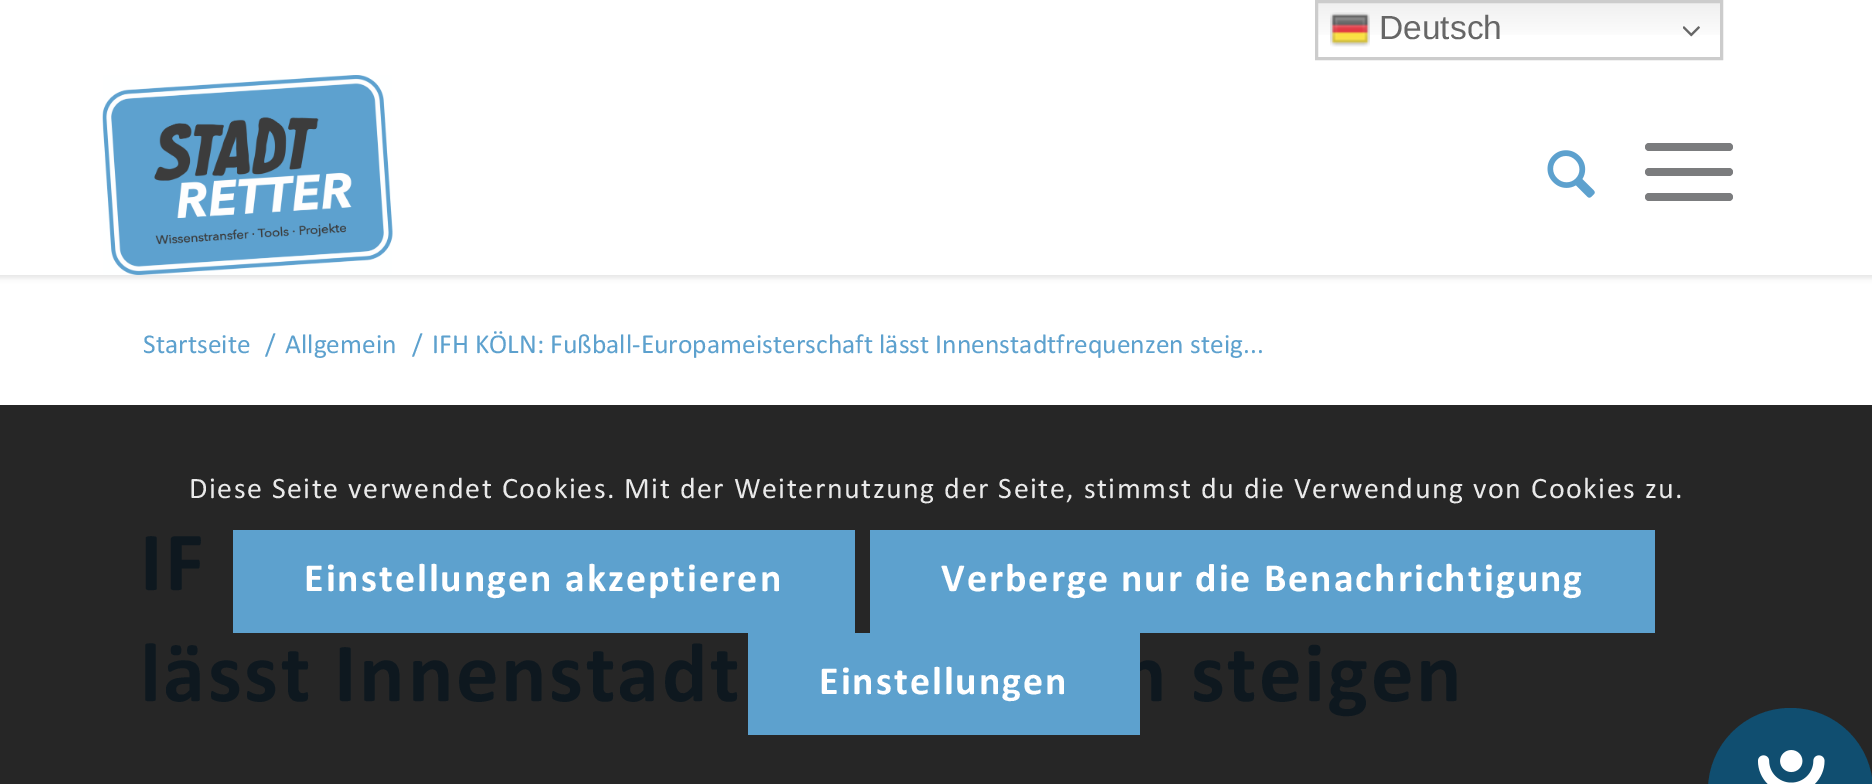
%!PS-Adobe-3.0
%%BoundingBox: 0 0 1872 784
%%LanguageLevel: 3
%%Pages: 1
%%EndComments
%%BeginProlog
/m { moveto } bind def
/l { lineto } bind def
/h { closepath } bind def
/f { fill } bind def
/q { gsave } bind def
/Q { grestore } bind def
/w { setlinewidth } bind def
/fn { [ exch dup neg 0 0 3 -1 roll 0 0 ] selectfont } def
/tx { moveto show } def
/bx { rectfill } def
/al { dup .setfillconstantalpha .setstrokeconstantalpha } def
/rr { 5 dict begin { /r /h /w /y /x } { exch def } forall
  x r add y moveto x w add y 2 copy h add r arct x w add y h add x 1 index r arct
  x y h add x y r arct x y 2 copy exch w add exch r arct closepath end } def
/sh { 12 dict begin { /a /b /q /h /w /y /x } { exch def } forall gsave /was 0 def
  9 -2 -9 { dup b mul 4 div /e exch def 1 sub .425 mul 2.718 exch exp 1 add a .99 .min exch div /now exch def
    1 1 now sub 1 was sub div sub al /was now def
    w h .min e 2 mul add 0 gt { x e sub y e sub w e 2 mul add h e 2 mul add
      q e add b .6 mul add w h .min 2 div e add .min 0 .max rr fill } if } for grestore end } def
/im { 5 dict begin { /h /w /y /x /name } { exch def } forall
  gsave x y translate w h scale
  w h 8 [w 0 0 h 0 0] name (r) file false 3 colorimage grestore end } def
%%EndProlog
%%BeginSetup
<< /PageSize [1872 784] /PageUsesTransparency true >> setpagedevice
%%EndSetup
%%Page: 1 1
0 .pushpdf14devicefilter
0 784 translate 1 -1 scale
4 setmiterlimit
1 setgray
0 0 1872 784 bx
0 setgray
-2 -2 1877 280 0 2.5 0.1 sh
1 setgray
0 0 1872 275 bx
q 1318 3 m 1720 3 l 1720 35 l 1318 35 l h clip newpath
<< /ShadingType 2 /ColorSpace /DeviceRGB /Coords [1519 0 1519 60] /Extend [true true] /Function << /FunctionType 3 /Domain [0 1] /Functions [<< /FunctionType 2 /Domain [0 1] /C0 [0.937 0.937 0.937] /C1 [1 1 1] /N 1 >> << /FunctionType 2 /Domain [0 1] /C0 [1 1 1] /C1 [1 1 1] /N 1 >>] /Bounds [0.7] /Encode [0 1 0 1] >> >> shfill Q
0.8 setgray
3 w
1316.5 1.5 405 57 rectstroke
(image0.raw) 1330 12 40 35 im
/LiberationSans-Regular 33.5 fn
0.4 setgray
(Deutsch) 1379 39 tx
(image1.raw) 1683 26 17 11 im
0.149 setgray
0 405 1872 379 bx
(image2.raw) 102 75 291 200 im
(image3.raw) 1547 150 48 48 im
0.482 0.486 0.494 setrgbcolor
1645 168 88 8 4 rr f
1645 143 88 8 4 rr f
1645 193 88 8 4 rr f
/Calibri-Regular 27.5 fn
0.365 0.631 0.808 setrgbcolor
(Startseite) 143 353 tx
(/) 265 353 tx
(Allgemein) 285 353 tx
(/) 412 353 tx
(IFH KÖLN: Fußball-Europameisterschaft lässt Innenstadtfrequenzen steig...) 432 353 tx
/Calibri-Bold 85 fn
0.055 0.094 0.122 setrgbcolor
140 590 m 2.5 0 (IF) ashow
140 701 m 2.5 0 (lässt Innenstadt) ashow
1121 701 m 2.5 0 (n steigen) ashow
/Calibri-Regular 30 fn
0.914 setgray
189 498 m 1.5 0 (Diese Seite verwendet Cookies. Mit der Weiternutzung der Seite, stimmst du die Verwendung von Cookies zu.) ashow
0.365 0.631 0.808 setrgbcolor
233 530 622 103 bx
/Calibri-Bold 40 fn
1 setgray
304 591 m 2 0 (Einstellungen akzeptieren) ashow
0.365 0.631 0.808 setrgbcolor
870 530 785 103 bx
1 setgray
941 591 m 2 0 (Verberge nur die Benachrichtigung) ashow
0.365 0.631 0.808 setrgbcolor
748 633 392 102 bx
1 setgray
819 694 m 2 0 (Einstellungen) ashow
0.063 0.306 0.439 setrgbcolor
1708 708 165 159 82.5 rr f
(image4.raw) 1758 750 67 34 im
.poppdf14devicefilter showpage
%%EOF
